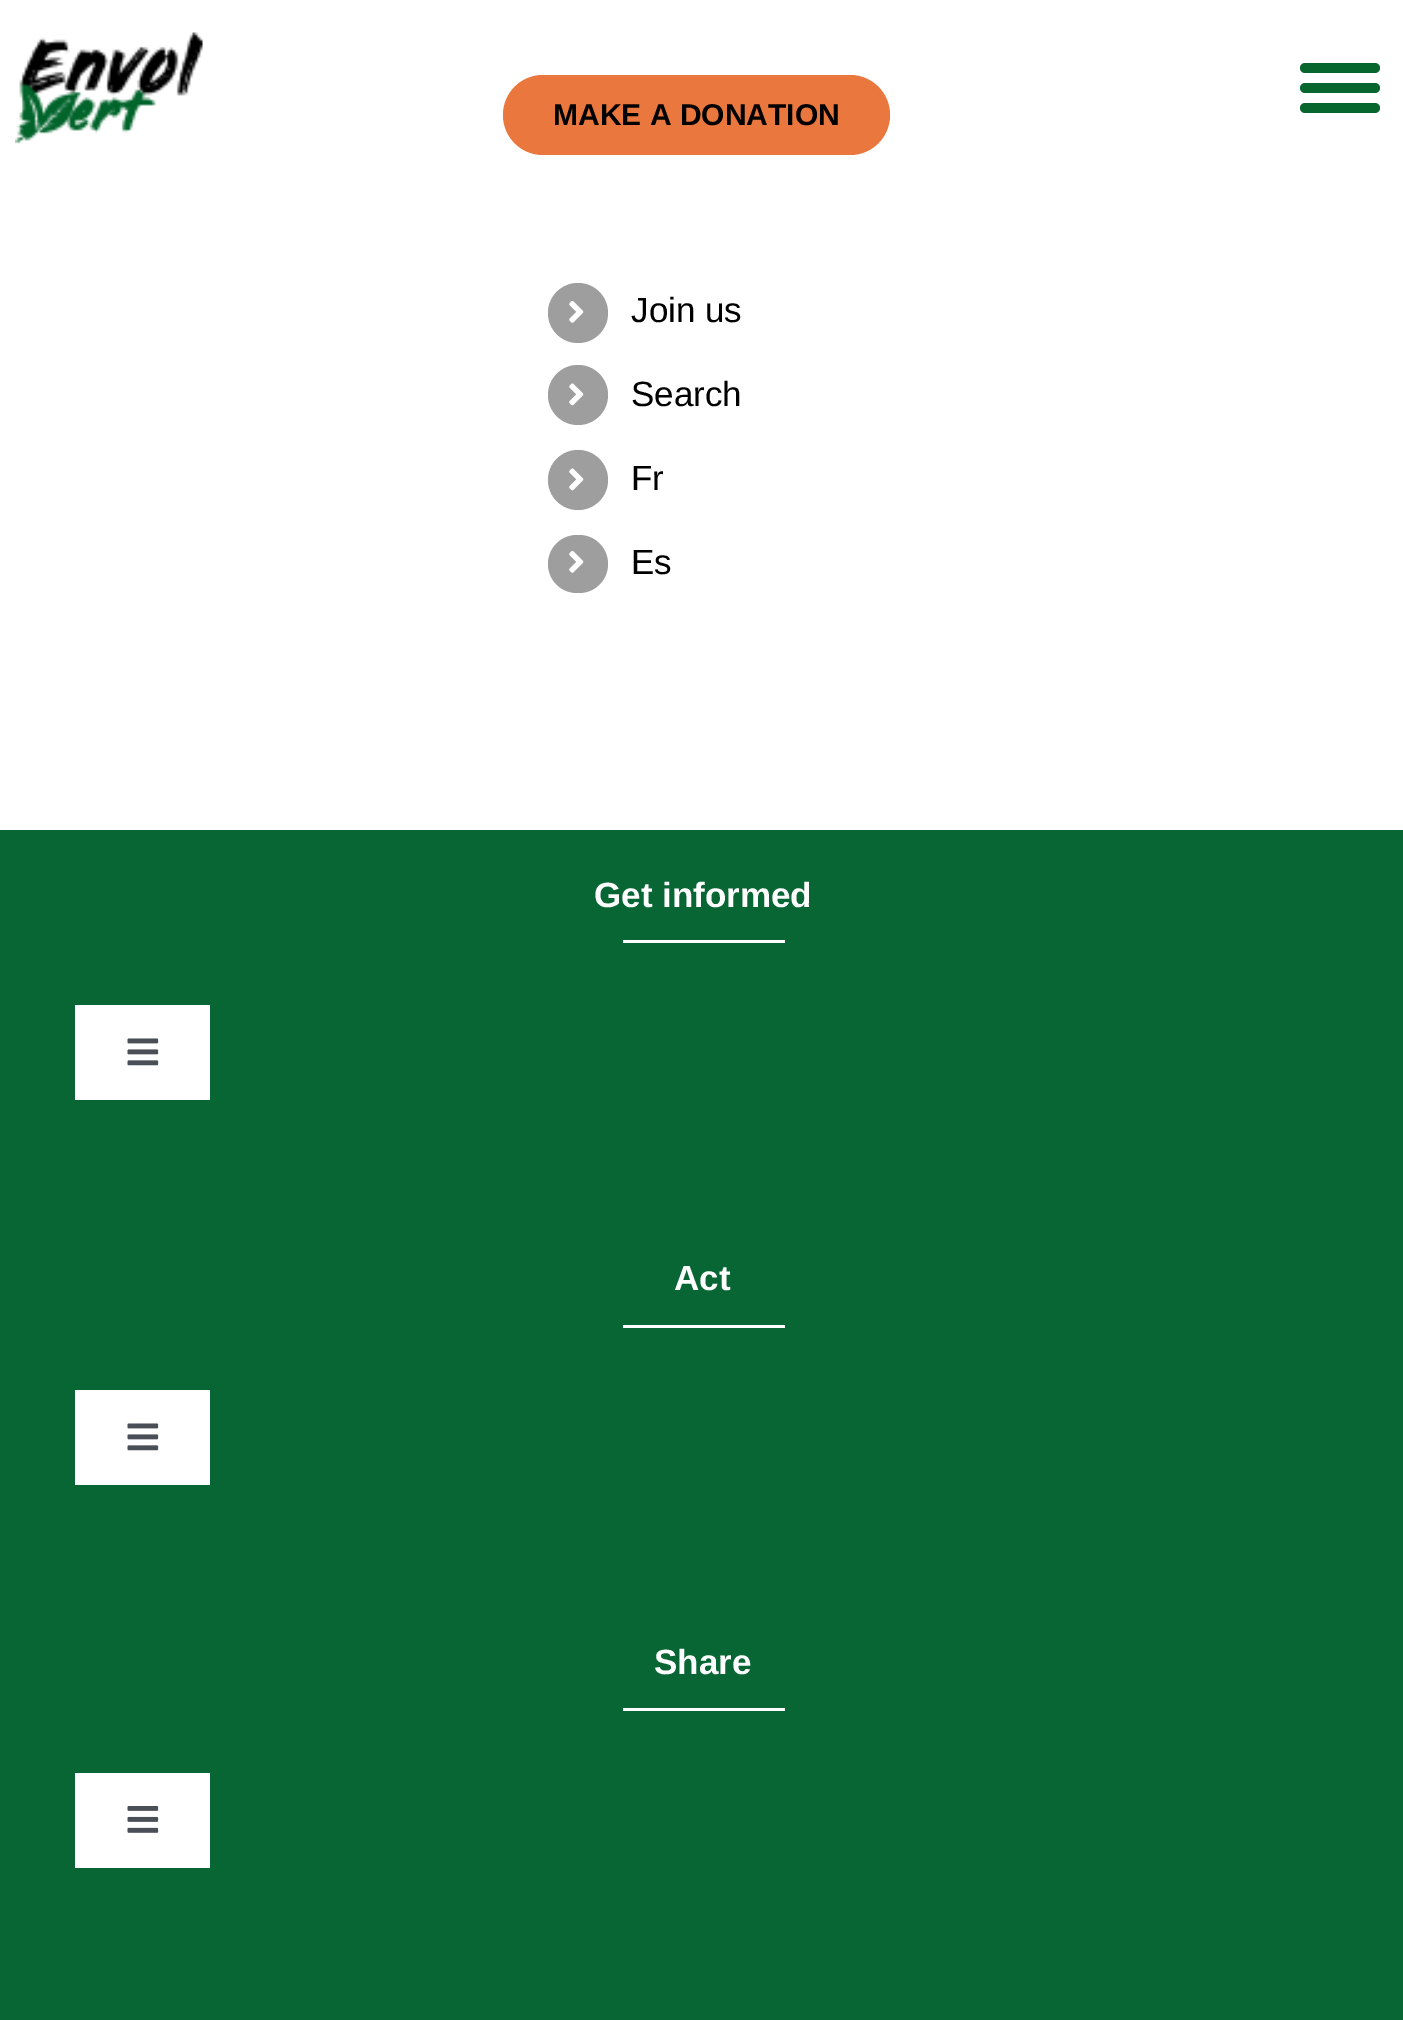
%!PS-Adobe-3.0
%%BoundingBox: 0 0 1403 2020
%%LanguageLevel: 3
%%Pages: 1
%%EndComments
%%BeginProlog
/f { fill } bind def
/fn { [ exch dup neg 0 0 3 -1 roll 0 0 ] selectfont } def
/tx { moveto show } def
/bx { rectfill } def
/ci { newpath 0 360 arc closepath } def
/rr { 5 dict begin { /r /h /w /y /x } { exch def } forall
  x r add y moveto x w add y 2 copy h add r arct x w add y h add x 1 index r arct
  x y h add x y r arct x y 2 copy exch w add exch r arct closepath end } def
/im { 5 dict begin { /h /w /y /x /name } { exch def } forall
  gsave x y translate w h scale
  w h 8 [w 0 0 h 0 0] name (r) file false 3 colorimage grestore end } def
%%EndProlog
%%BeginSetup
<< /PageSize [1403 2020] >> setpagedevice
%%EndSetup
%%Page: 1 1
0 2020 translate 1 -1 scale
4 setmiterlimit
1 setgray
0 0 1403 2020 bx
(image0.raw) 15 32 188 112 im
0.918 0.467 0.239 setrgbcolor
503 75 387 80 40 rr f
/LiberationSans-Bold 30 fn
0 setgray
(MAKE A DONATION) 553 125 tx
0.027 0.4 0.18 setrgbcolor
1300 63 80 10 5 rr f
1300 83 80 10 5 rr f
1300 103 80 10 5 rr f
0.62 setgray
578 313 30 ci f
(image1.raw) 569 301 15 22 im
/LiberationSans-Regular 35 fn
0 setgray
(Join us) 631 322 tx
0.62 setgray
578 395 30 ci f
(image2.raw) 569 383 15 23 im
0 setgray
(Search) 631 406 tx
0.62 setgray
578 480 30 ci f
(image2.raw) 569 468 15 23 im
0 setgray
(Fr) 631 490 tx
0.62 setgray
548 535 60 58 29 rr f
(image1.raw) 569 551 15 22 im
0 setgray
(Es) 631 574 tx
0.027 0.4 0.2 setrgbcolor
0 830 1403 1190 bx
/LiberationSans-Bold 35 fn
1 setgray
(Get informed) 594 907 tx
623 940 162 3 bx
75 1005 135 95 bx
(image3.raw) 127 1038 32 28 im
(Act) 674 1290 tx
623 1325 162 3 bx
75 1390 135 95 bx
(image3.raw) 127 1423 32 28 im
(Share) 654 1674 tx
623 1708 162 3 bx
75 1773 135 95 bx
(image4.raw) 127 1806 32 27 im
showpage
%%EOF
